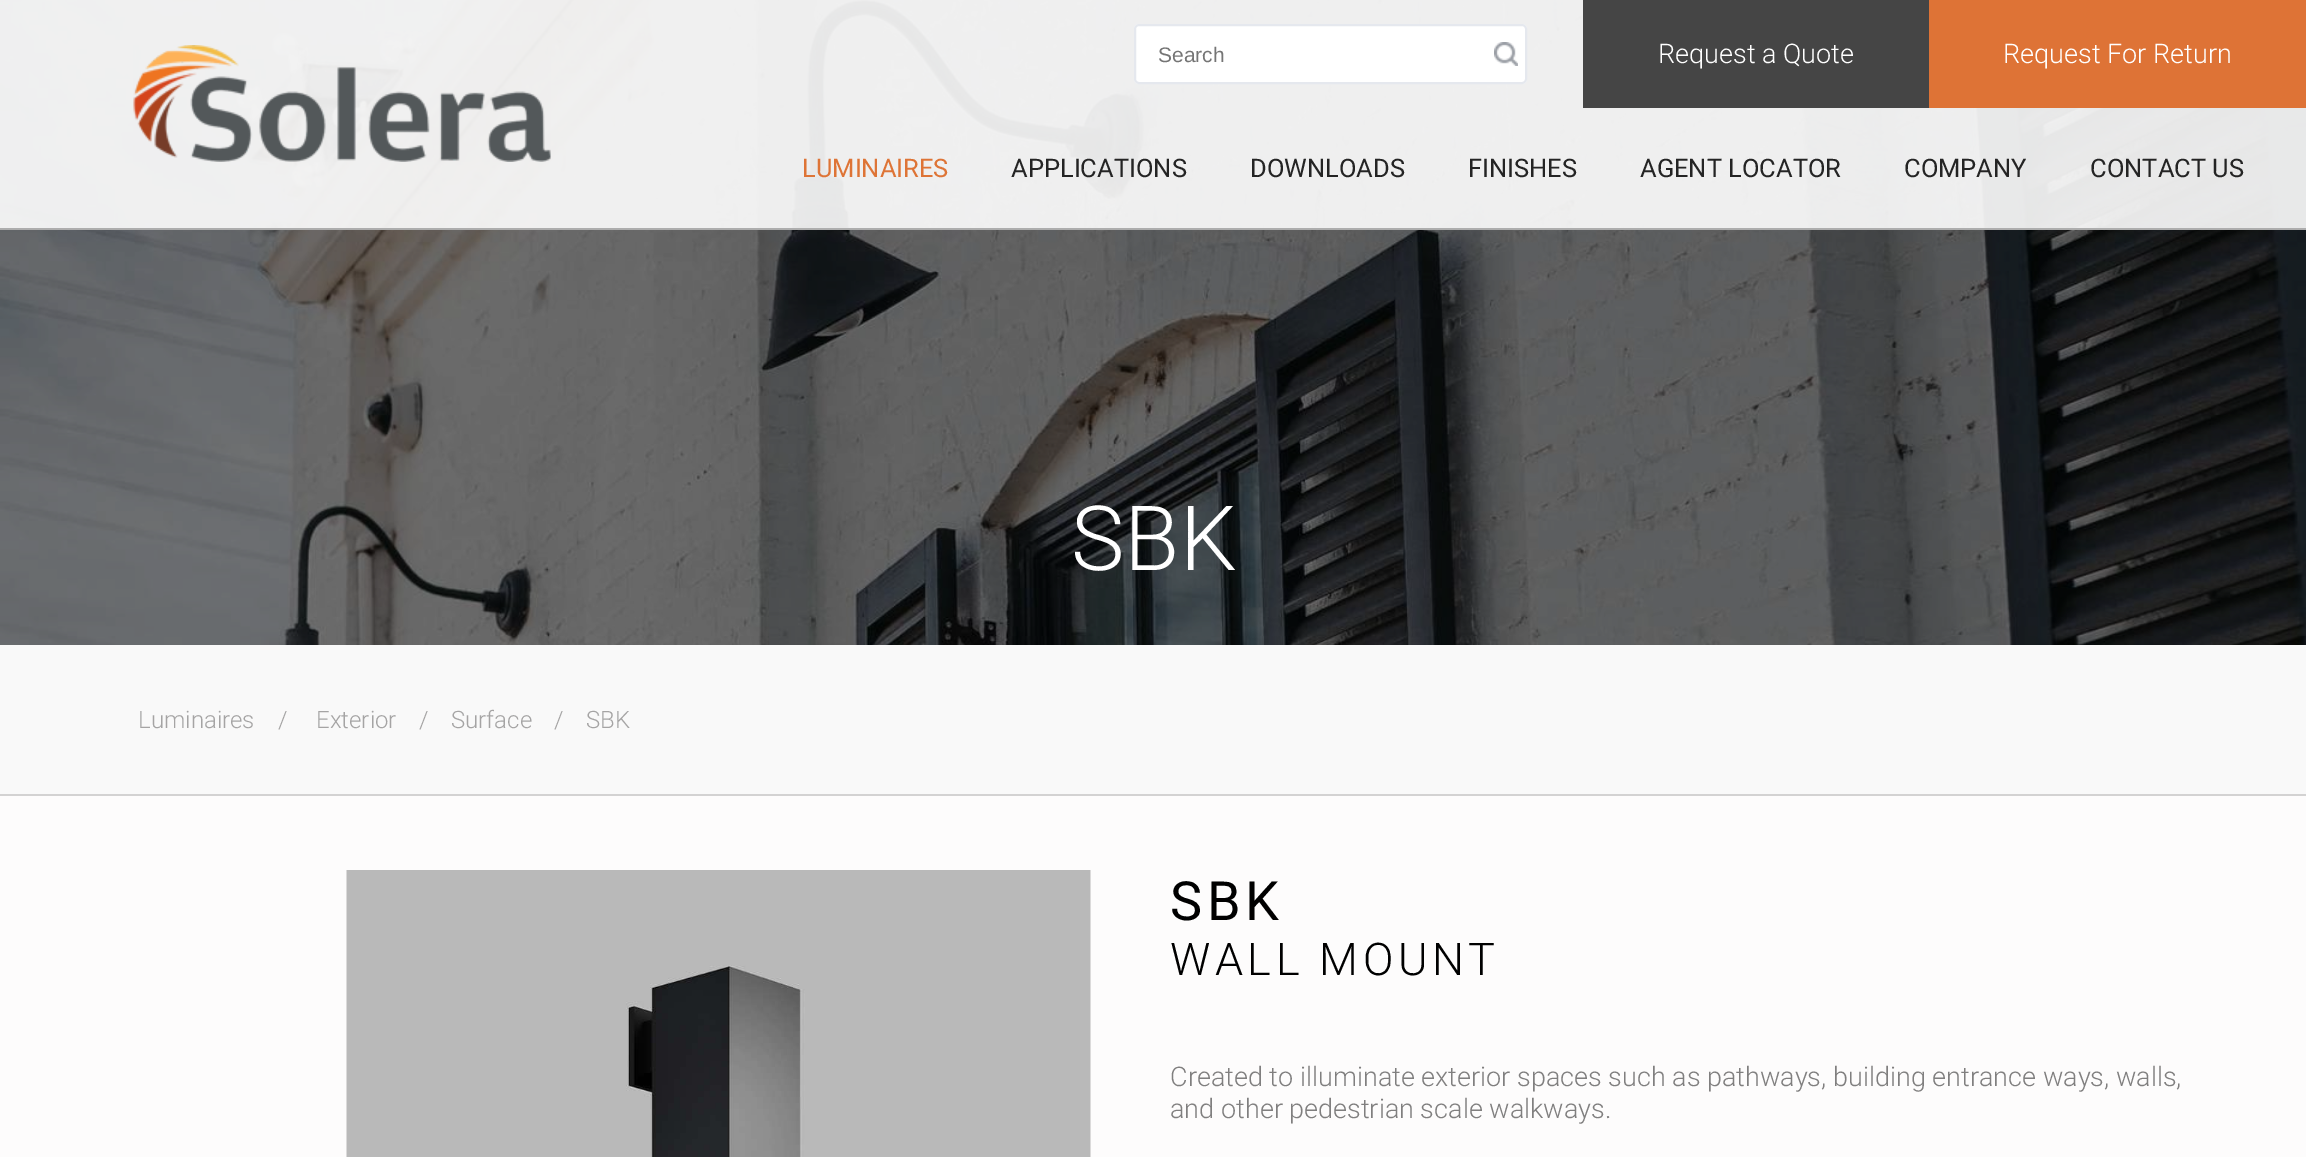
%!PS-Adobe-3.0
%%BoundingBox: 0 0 2306 1157
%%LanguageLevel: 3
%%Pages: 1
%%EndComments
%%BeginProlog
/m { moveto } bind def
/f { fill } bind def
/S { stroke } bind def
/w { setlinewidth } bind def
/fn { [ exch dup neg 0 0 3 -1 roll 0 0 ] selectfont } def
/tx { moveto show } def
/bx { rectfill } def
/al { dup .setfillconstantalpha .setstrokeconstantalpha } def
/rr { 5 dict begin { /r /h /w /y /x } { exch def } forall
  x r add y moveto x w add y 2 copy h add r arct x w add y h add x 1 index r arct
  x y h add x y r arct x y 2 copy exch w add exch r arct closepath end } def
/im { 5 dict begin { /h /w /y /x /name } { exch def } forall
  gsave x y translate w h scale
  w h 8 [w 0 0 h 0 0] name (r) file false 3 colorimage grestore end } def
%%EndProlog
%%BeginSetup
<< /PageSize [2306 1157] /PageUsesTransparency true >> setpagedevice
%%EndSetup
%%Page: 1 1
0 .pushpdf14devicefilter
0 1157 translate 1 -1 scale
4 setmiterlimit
0.992 0.988 0.988 setrgbcolor
0 0 2306 1157 bx
(image2.raw) 0 0 2306 645 im
0.9 al
1 setgray
0 0 2306 228 bx
1 al
0.678 setgray
0 228 2306 2 bx
(image0.raw) 133 45 418 117 im
1 setgray
1134 24 393 60 5 rr f
(image1.raw) 1494 42 24 24 im
0.898 0.91 0.933 setrgbcolor
2 w
1135 25 391 58 4 rr S
/LiberationSans-Regular 21 fn
0.459 setgray
(Search) 1158 62 tx
0.271 setgray
1583 0 346 108 bx
/Roboto-Light 27 fn
1 setgray
(Request a Quote) 1658 63 tx
0.871 0.451 0.212 setrgbcolor
1929 0 377 108 bx
1 setgray
(Request For Return) 2003 63 tx
/Roboto-Regular 25.5 fn
0.871 0.455 0.212 setrgbcolor
(LUMINAIRES) 802 177 tx
0.141 setgray
(APPLICATIONS) 1011 177 tx
(DOWNLOADS) 1250 177 tx
(FINISHES) 1468 177 tx
(AGENT LOCATOR) 1640 177 tx
(COMPANY) 1904 177 tx
(CONTACT US) 2090 177 tx
/Roboto-Light 90 fn
1 setgray
(SBK) 1071 570 tx
0.976 setgray
0 645 2306 149 bx
0.827 0.824 0.824 setrgbcolor
0 794 2306 2 bx
/Roboto-Light 24 fn
0.647 0.643 0.643 setrgbcolor
(Luminaires) 138 728 tx
(/) 278 728 tx
(Exterior) 316 728 tx
(/) 419 728 tx
(Surface) 451 728 tx
(/) 554 728 tx
(SBK) 586 728 tx
(image3.raw) 346 870 745 287 im
/Roboto-Regular 54 fn
0 setgray
1170 920 m 4.5 0 (SBK) ashow
/Roboto-Light 45 fn
1170 975 m 4.5 0 (WALL MOUNT) ashow
/Roboto-Light 27 fn
0.502 0.498 0.498 setrgbcolor
(Created to illuminate exterior spaces such as pathways, building entrance ways, walls,) 1170 1086 tx
(and other pedestrian scale walkways.) 1170 1118 tx
.poppdf14devicefilter showpage
%%EOF
